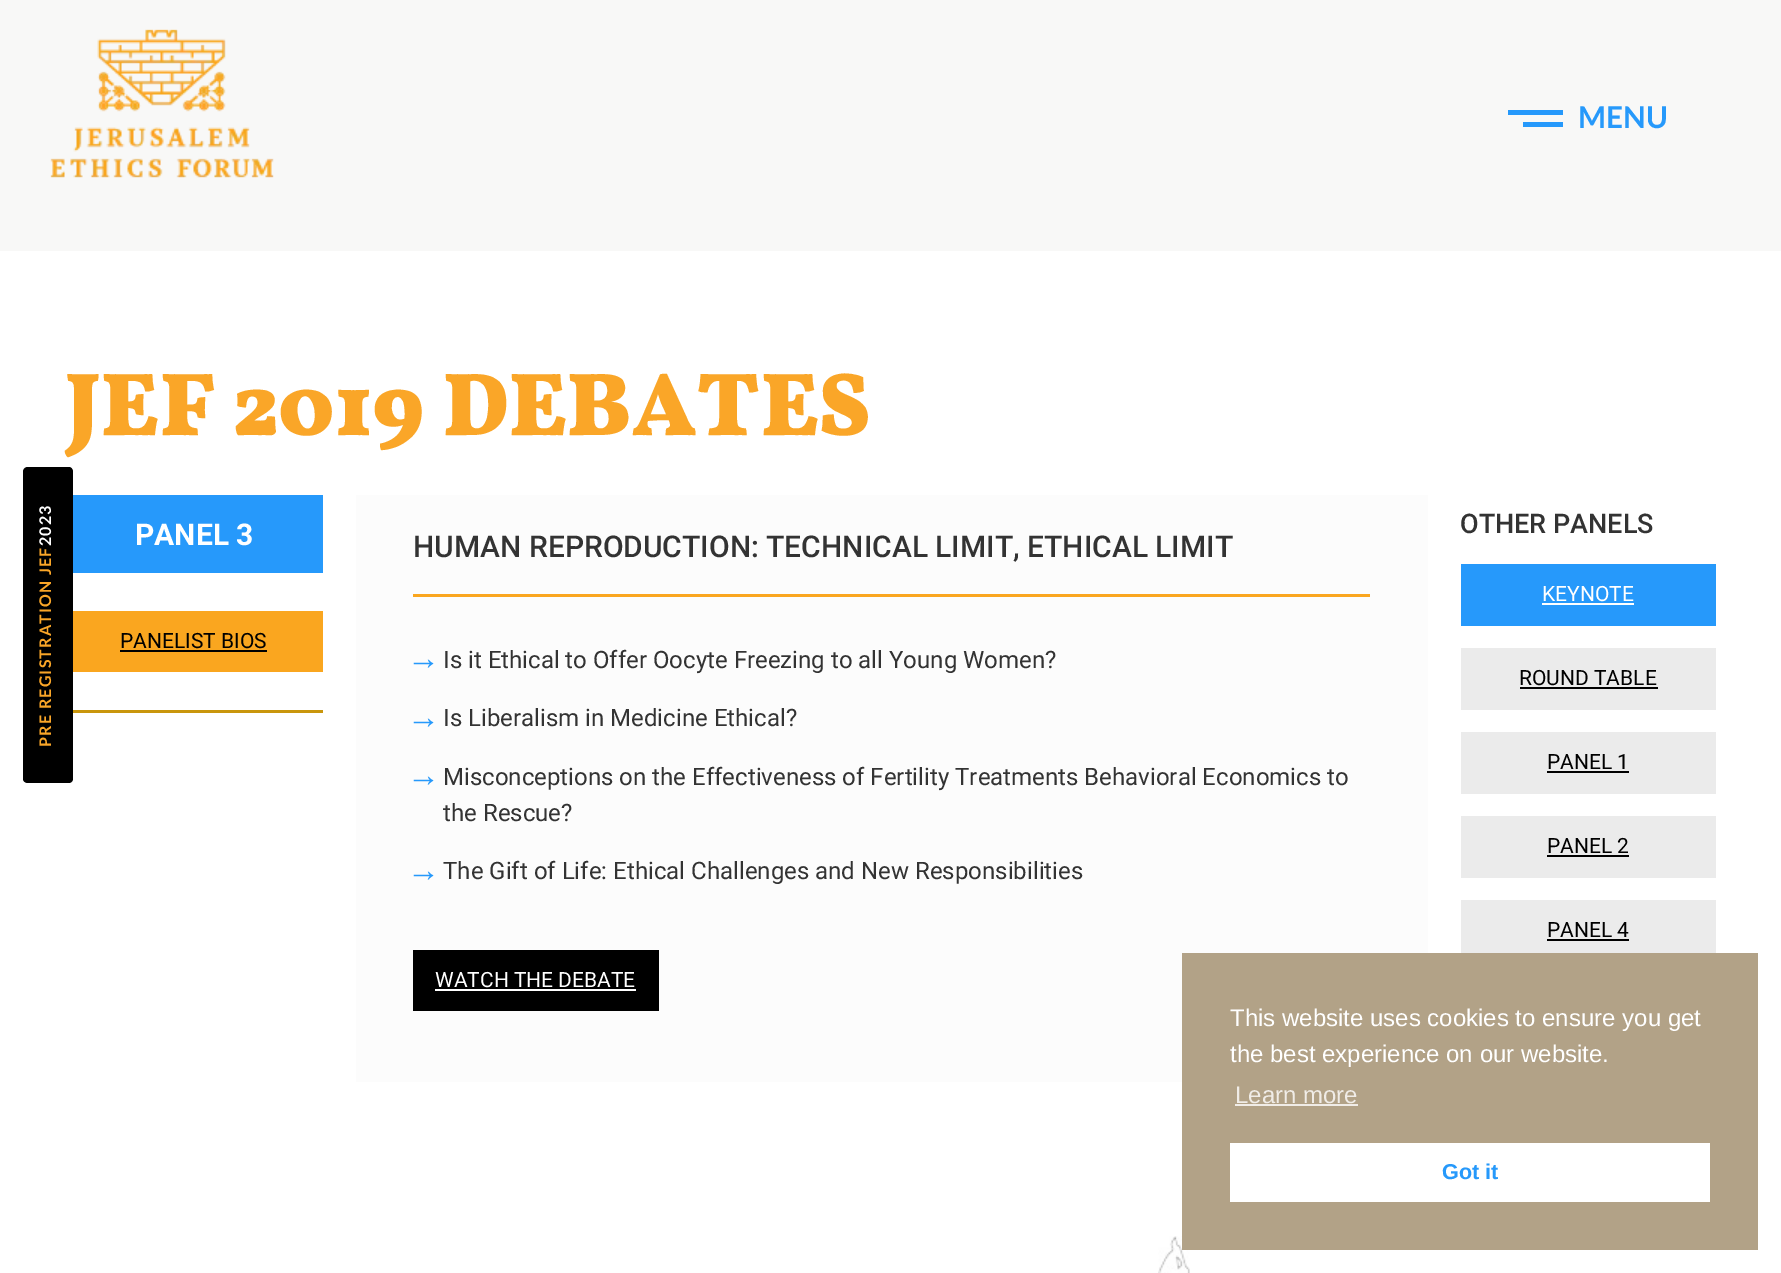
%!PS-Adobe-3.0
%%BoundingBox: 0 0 1781 1273
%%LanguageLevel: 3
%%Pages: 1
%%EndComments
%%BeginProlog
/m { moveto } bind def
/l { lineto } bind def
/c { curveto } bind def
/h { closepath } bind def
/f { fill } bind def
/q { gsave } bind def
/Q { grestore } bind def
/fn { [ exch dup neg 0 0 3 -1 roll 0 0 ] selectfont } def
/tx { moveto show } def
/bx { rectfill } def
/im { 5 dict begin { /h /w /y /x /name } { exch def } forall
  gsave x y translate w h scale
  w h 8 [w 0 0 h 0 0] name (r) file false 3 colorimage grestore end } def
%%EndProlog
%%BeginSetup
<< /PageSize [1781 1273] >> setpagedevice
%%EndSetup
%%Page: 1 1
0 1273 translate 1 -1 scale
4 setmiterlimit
1 setgray
0 0 1781 1273 bx
(image0.raw) 1158 1236 32 37 im
0.973 0.973 0.969 setrgbcolor
0 0 1781 251 bx
(image1.raw) 50 29 224 149 im
0.149 0.6 0.984 setrgbcolor
1508 110 55 5 bx
1523 122 40 5 bx
/Lato-Bold 30 fn
(MENU) 1578 128 tx
/Vollkorn-Black 90 fn
0.98 0.651 0.157 setrgbcolor
(JEF 2019 DEBATES) 66 435 tx
0.788 0.588 0.047 setrgbcolor
66 710 257 3 bx
0 setgray
23 779 m 23 472 l 23 469 25 467 28 467 c 69 467 l 71 467 73 469 73 472 c 73 779 l 73 781 71 783 69 783 c 28 783 l 25 783 23 781 23 779 c h f
/Lato-Bold 16 fn
1 setgray
q 51 546 translate -90 rotate 0 0 m 1.2 0 (2023) ashow Q
0.98 0.651 0.157 setrgbcolor
q 51 747 translate -90 rotate 0 0 m 1.2 0 (PRE REGISTRATION JEF) ashow Q
0.149 0.6 0.984 setrgbcolor
73 495 250 78 bx
/Roboto-Bold 30 fn
1 setgray
(PANEL 3) 135 545 tx
0.98 0.651 0.122 setrgbcolor
73 611 250 61 bx
/Roboto-Regular 21 fn
0 setgray
(PANELIST BIOS) 120 648 tx
120 650 147 2 bx
0.988 setgray
356 495 1072 587 bx
/Roboto-Medium 30 fn
0.2 setgray
(HUMAN REPRODUCTION: TECHNICAL LIMIT, ETHICAL LIMIT) 413 557 tx
0.98 0.651 0.122 setrgbcolor
413 594 957 3 bx
/LiberationSans-Regular 33 fn
0.149 0.6 0.984 setrgbcolor
(→) 407 669 tx
/Roboto-Regular 24 fn
0.2 setgray
(Is it Ethical to Offer Oocyte Freezing to all Young Women?) 443 668 tx
/LiberationSans-Regular 33 fn
0.149 0.6 0.984 setrgbcolor
(→) 407 728 tx
/Roboto-Regular 24 fn
0.2 setgray
(Is Liberalism in Medicine Ethical?) 443 726 tx
/LiberationSans-Regular 33 fn
0.149 0.6 0.984 setrgbcolor
(→) 407 786 tx
/Roboto-Regular 24 fn
0.2 setgray
(Misconceptions on the Effectiveness of Fertility Treatments Behavioral Economics to) 443 785 tx
(the Rescue?) 443 821 tx
/LiberationSans-Regular 33 fn
0.149 0.6 0.984 setrgbcolor
(→) 407 881 tx
/Roboto-Regular 24 fn
0.2 setgray
(The Gift of Life: Ethical Challenges and New Responsibilities) 443 879 tx
0 setgray
413 950 246 61 bx
/Roboto-Regular 21 fn
1 setgray
(WATCH THE DEBATE) 435 987 tx
435 989 201 2 bx
/Roboto-Medium 27 fn
0.2 setgray
(OTHER PANELS) 1460 533 tx
0.149 0.6 0.984 setrgbcolor
1461 564 255 62 bx
/Roboto-Regular 21 fn
1 setgray
(KEYNOTE) 1542 601 tx
1542 603 92 2 bx
0.922 setgray
1461 648 255 62 bx
0 setgray
(ROUND TABLE) 1519 685 tx
1520 687 138 2 bx
0.922 setgray
1461 732 255 62 bx
0 setgray
(PANEL 1) 1547 769 tx
1547 771 82 2 bx
0.922 setgray
1461 816 255 62 bx
0 setgray
(PANEL 2) 1547 853 tx
1547 855 82 2 bx
0.922 setgray
1461 900 255 53 bx
0 setgray
(PANEL 4) 1547 937 tx
1547 939 82 2 bx
0.698 0.635 0.529 setrgbcolor
1182 953 576 297 bx
/LiberationSans-Regular 24 fn
1 setgray
(This website uses cookies to ensure you get) 1230 1026 tx
(the best experience on our website.) 1230 1062 tx
0.941 0.925 0.906 setrgbcolor
(Learn more) 1235 1103 tx
1235 1104 123 2 bx
1 setgray
1230 1143 480 59 bx
/LiberationSans-Bold 21.5 fn
0.149 0.6 0.984 setrgbcolor
(Got it) 1442 1179 tx
showpage
%%EOF
